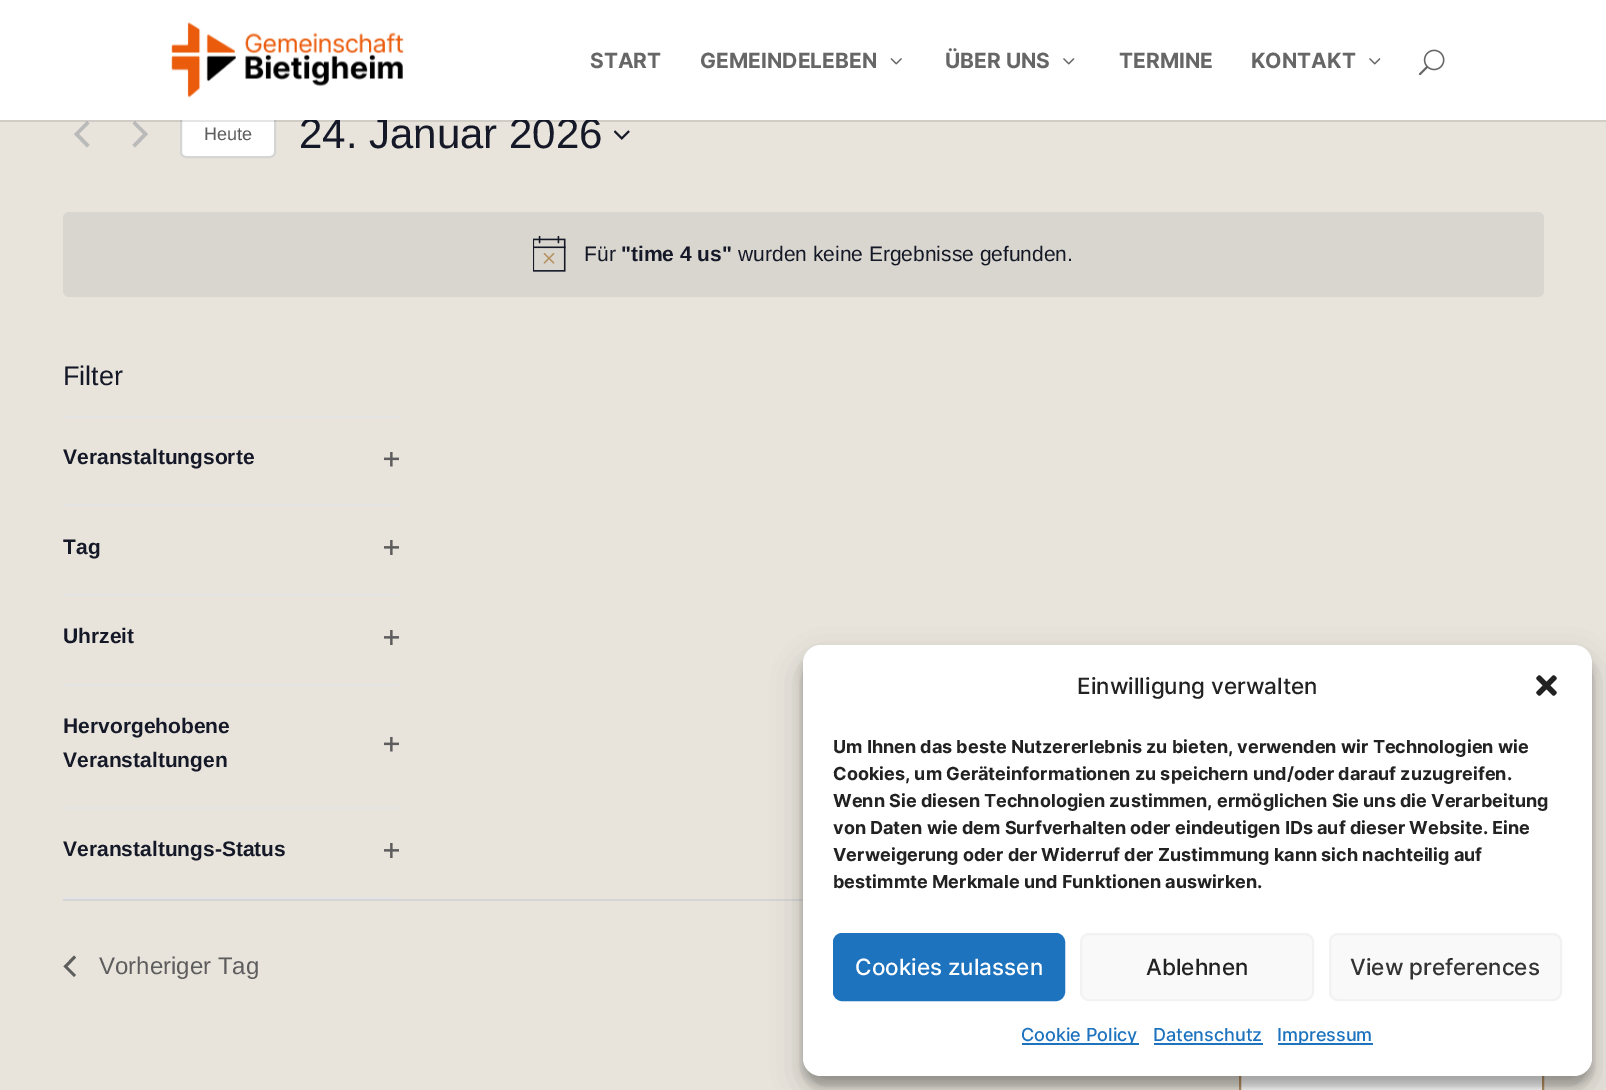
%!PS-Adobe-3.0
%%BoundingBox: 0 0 1606 1090
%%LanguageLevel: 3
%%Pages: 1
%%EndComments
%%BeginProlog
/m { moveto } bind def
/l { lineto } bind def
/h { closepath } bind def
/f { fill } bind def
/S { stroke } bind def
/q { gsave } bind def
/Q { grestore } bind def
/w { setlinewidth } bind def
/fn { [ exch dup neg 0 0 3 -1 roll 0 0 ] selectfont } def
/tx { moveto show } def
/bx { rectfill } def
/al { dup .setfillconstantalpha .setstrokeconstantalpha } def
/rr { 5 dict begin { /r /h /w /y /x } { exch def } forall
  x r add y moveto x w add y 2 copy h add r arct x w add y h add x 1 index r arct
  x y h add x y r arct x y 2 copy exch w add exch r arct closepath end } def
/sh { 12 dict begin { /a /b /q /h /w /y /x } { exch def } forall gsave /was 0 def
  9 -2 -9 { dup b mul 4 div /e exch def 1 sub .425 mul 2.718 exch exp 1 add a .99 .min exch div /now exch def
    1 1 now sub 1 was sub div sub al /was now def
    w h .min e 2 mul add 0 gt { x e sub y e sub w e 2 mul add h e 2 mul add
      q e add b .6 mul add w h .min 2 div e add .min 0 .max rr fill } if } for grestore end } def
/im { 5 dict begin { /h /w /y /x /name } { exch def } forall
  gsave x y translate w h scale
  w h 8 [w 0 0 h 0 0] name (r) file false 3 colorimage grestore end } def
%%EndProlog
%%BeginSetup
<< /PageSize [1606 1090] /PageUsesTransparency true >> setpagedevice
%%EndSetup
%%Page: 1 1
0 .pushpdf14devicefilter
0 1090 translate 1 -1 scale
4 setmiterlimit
0.91 0.894 0.863 setrgbcolor
0 0 1606 1090 bx
0.729 setgray
89.5 145 m 87 147.5 l 74 134 l 87 121 l 89.5 123.5 l 79 134 l h f
132.5 123.5 m 135 121 l 148 134 l 135 147.5 l 132.5 145 l 143 134 l h f
1 setgray
181 112 94 45 5 rr q f Q
0.835 setgray
2 w
S
0.1 al
0 setgray
0 120 m 0 122 l 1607 122 l 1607 2 l 1606 2 l 1606 120 l h f
/LiberationSans-Regular 42 fn
1 al
0.078 0.094 0.153 setrgbcolor
(24. Januar 2026) 299 148 tx
1 setgray
0 0 1606 120 bx
(image0.raw) 171 22 233 76 im
/Inter-Bold 21 fn
0.4 setgray
(START) 590 68 tx
(GEMEINDELEBEN) 700 68 tx
(image1.raw) 890 58 12 7 im
(ÜBER UNS) 945 68 tx
(image2.raw) 1063 58 12 7 im
(TERMINE) 1119 68 tx
(KONTAKT) 1251 68 tx
(image2.raw) 1369 58 12 7 im
(image3.raw) 1418 49 27 27 im
/LiberationSans-Regular 18 fn
0.365 setgray
(Heute) 204 140 tx
(image4.raw) 614 130 16 10 im
0.851 0.839 0.812 setrgbcolor
63 212 1481 85 6 rr f
(image5.raw) 533 236 33 36 im
/LiberationSans-Regular 21 fn
0.078 0.094 0.153 setrgbcolor
(Für) 584 261 tx
/LiberationSans-Bold 21 fn
("time 4 us") 621 261 tx
/LiberationSans-Regular 21 fn
(wurden keine Ergebnisse gefunden.) 738 261 tx
/LiberationSans-Regular 27 fn
(Filter) 63 385 tx
0.894 setgray
63 897 336 2 bx
63 416 336 2 bx
/LiberationSans-Bold 21 fn
0.078 0.094 0.153 setrgbcolor
(Veranstaltungsorte) 63 464 tx
(image6.raw) 384 452 15 15 im
0.894 setgray
63 504 336 2 bx
0.078 0.094 0.153 setrgbcolor
(Tag) 63 554 tx
(image7.raw) 384 540 15 15 im
0.894 setgray
63 594 336 2 bx
0.078 0.094 0.153 setrgbcolor
(Uhrzeit) 63 643 tx
(image7.raw) 384 630 15 15 im
0.894 setgray
63 684 336 2 bx
0.078 0.094 0.153 setrgbcolor
(Hervorgehobene) 63 733 tx
(Veranstaltungen) 63 767 tx
(image6.raw) 384 737 15 15 im
0.894 setgray
63 807 336 2 bx
0.078 0.094 0.153 setrgbcolor
(Veranstaltungs-Status) 63 856 tx
(image7.raw) 384 843 15 15 im
0.835 setgray
63 899 740 2 bx
0.365 setgray
76 975 m 74 977 l 63.5 966.5 l 74 955.5 l 76 957.5 l 67.5 966.5 l h f
/LiberationSans-Regular 24 fn
(Vorheriger Tag) 99 974 tx
1 setgray
1241 1076 301 14 bx
0.718 0.569 0.384 setrgbcolor
1240 1035 303 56 rectstroke
0 setgray
803 654 789 431 18 4.5 0.23 sh
803 660 789 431 18 15 0.19 sh
1 setgray
803 645 789 431 18 rr f
/Inter-Medium 22.5 fn
0.133 setgray
(Einwilligung verwalten) 1077 694 tx
(image8.raw) 1536 675 21 21 im
/Inter-Bold 18 fn
(Um Ihnen das beste Nutzererlebnis zu bieten, verwenden wir Technologien wie) 833 753 tx
(Cookies, um Geräteinformationen zu speichern und/oder darauf zuzugreifen.) 833 780 tx
(Wenn Sie diesen Technologien zustimmen, ermöglichen Sie uns die Verarbeitung) 833 807 tx
(von Daten wie dem Surfverhalten oder eindeutigen IDs auf dieser Website. Eine) 833 834 tx
(Verweigerung oder der Widerruf der Zustimmung kann sich nachteilig auf) 833 861 tx
(bestimmte Merkmale und Funktionen auswirken.) 833 888 tx
0.118 0.451 0.745 setrgbcolor
834 934 230 66 8 rr q f Q
S
/Inter-Medium 22.5 fn
1 setgray
(Cookies zulassen) 855 975 tx
0.976 setgray
1081 934 232 66 8 rr q f Q
0.949 setgray
S
0.133 setgray
(Ablehnen) 1146 975 tx
0.976 setgray
1330 934 231 66 8 rr q f Q
0.949 setgray
S
0.2 setgray
(View preferences) 1350 975 tx
0.118 0.451 0.745 setrgbcolor
1022 1043 117 2 bx
/Inter-Medium 18 fn
(Cookie Policy) 1021 1041 tx
(Datenschutz) 1153 1041 tx
1154 1043 109 2 bx
1278 1043 95 2 bx
(Impressum) 1277 1041 tx
.poppdf14devicefilter showpage
%%EOF
